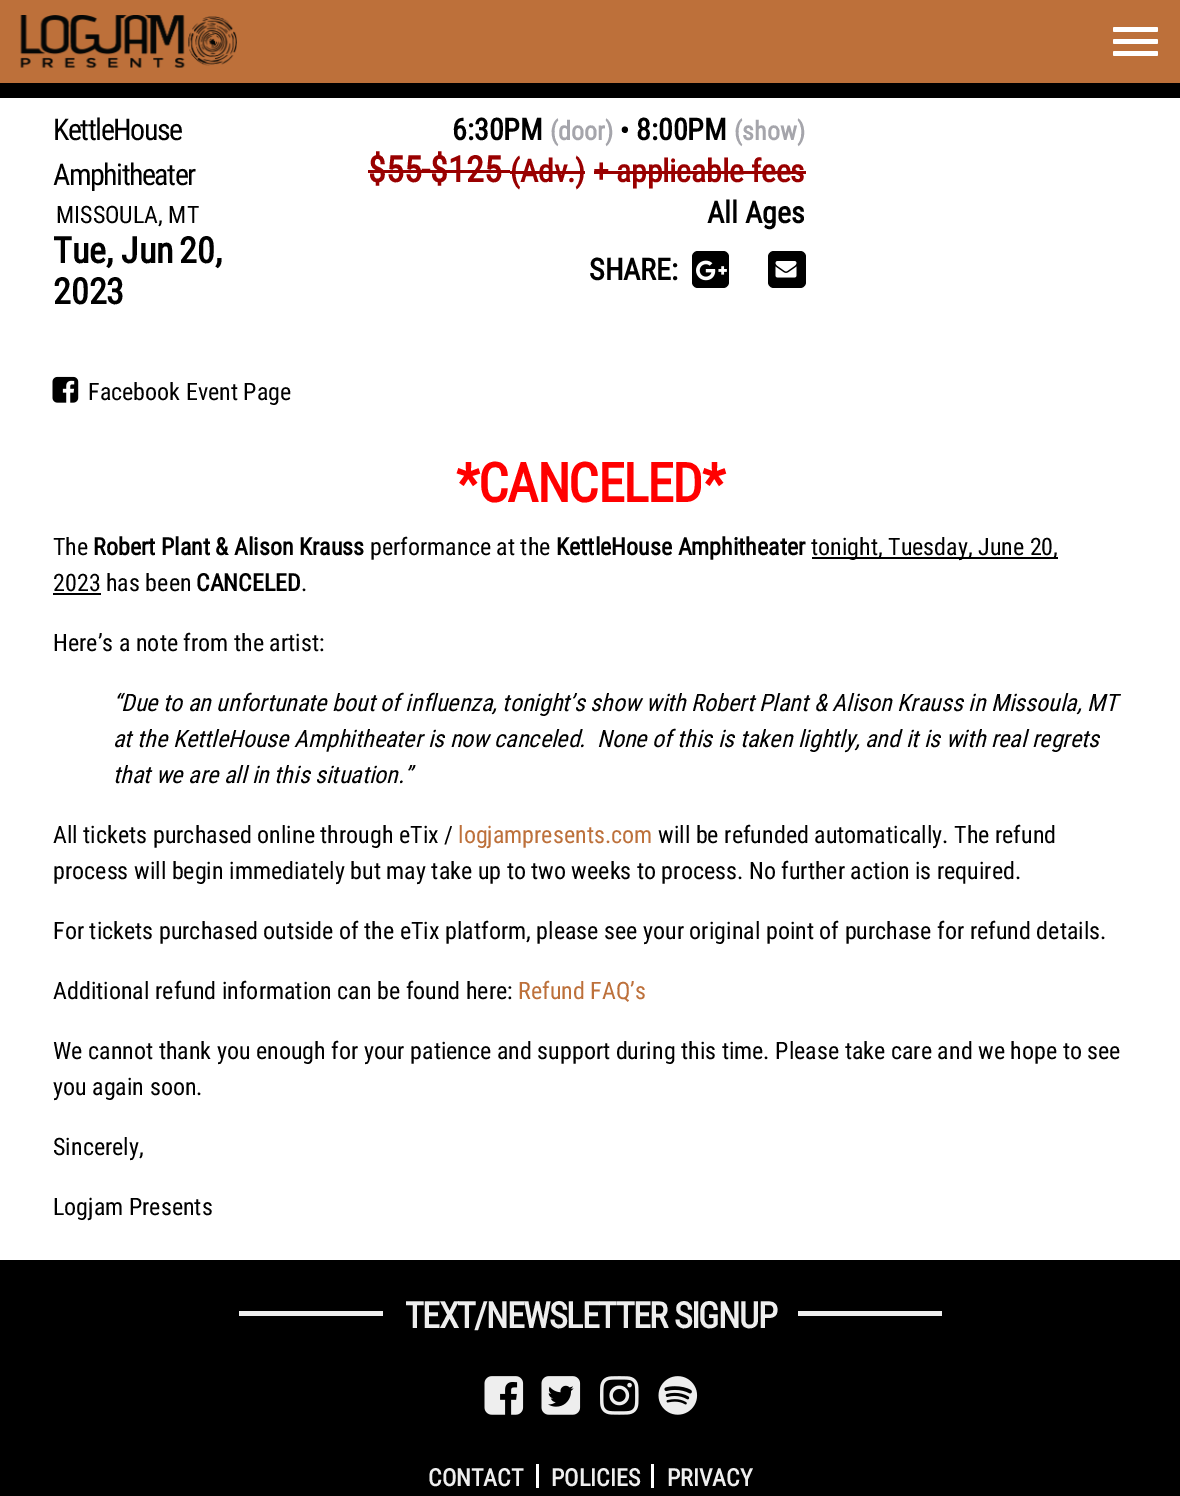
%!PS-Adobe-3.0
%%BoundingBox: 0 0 1180 1496
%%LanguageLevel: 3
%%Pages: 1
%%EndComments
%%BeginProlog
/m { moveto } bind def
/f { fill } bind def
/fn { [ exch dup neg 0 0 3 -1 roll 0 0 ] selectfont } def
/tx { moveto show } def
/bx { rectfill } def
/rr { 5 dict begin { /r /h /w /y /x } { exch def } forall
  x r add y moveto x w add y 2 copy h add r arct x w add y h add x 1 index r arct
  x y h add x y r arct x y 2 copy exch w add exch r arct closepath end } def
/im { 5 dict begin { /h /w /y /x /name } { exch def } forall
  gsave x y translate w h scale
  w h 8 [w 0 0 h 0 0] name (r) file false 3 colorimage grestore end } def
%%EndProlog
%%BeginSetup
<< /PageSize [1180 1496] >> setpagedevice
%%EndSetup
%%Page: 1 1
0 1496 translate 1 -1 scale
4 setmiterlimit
0 setgray
0 0 1180 1496 bx
0.741 0.439 0.227 setrgbcolor
0 0 1180 83 bx
(image0.raw) 20 15 217 53 im
1 setgray
1113 27 45 5 1.5 rr f
1113 39 45 5 1.5 rr f
1113 51 45 5 1.5 rr f
0 98 1180 1162 bx
/RobotoCondensed-Regular 30 fn
0 setgray
53 140 m -1.5 0 (KettleHouse) ashow
53 185 m -1.5 0 (Amphitheater) ashow
/RobotoCondensed-Regular 24 fn
(MISSOULA, MT) 56 223 tx
/RobotoCondensed-Bold 36 fn
(Tue, Jun) 53 263 tx
(20,) 179 263 tx
(2023) 53 304 tx
(image1.raw) 52 376 27 27 im
/RobotoCondensed-Regular 24 fn
(Facebook Event Page) 88 400 tx
/RobotoCondensed-Bold 30 fn
(6:30PM) 452 140 tx
/RobotoCondensed-Bold 26 fn
0.647 0.647 0.671 setrgbcolor
(\(door\)) 550 140 tx
/RobotoCondensed-Bold 27 fn
0 setgray
(•) 620 140 tx
/RobotoCondensed-Bold 30 fn
(8:00PM) 636 140 tx
/RobotoCondensed-Bold 26 fn
0.647 0.647 0.671 setrgbcolor
(\(show\)) 734 140 tx
/RobotoCondensed-Bold 36 fn
0.6 0 0 setrgbcolor
($55-$125) 368 182 tx
/RobotoCondensed-Bold 31.5 fn
(\(Adv.\)) 510 182 tx
368 170 142 3 bx
510 171 75 3 bx
(+ applicable fees) 593 182 tx
594 171 212 3 bx
/RobotoCondensed-Bold 30 fn
0 setgray
(All Ages) 707 223 tx
(SHARE:) 589 280 tx
692 251 37 37 6 rr f
(image2.raw) 696 260 31 21 im
768 251 38 37 6 rr f
(image3.raw) 775 261 22 17 im
/RobotoCondensed-Bold 54 fn
1 0 0 setrgbcolor
456 502 m -1.5 0 (*CANCELED*) ashow
/RobotoCondensed-Regular 24 fn
0 setgray
(The) 53 555 tx
/RobotoCondensed-Bold 24 fn
(Robert Plant & Alison Krauss) 93 555 tx
/RobotoCondensed-Regular 24 fn
(performance at the) 370 555 tx
/RobotoCondensed-Bold 24 fn
(KettleHouse Amphitheater) 556 555 tx
812 557 246 2 bx
/RobotoCondensed-Regular 24 fn
(tonight, Tuesday, June 20,) 811 555 tx
(2023 has been) 53 591 tx
53 593 48 2 bx
/RobotoCondensed-Bold 24 fn
(CANCELED) 196 591 tx
/RobotoCondensed-Regular 24 fn
(.) 301 591 tx
(Here’s a note from the artist:) 53 651 tx
/RobotoCondensed-Italic 24 fn
(“Due to an unfortunate bout of influenza, tonight’s show with Robert Plant & Alison Krauss in Missoula, MT) 113 711 tx
(at the KettleHouse Amphitheater is now canceled.  None of this is taken lightly, and it is with real regrets) 113 747 tx
(that we are all in this situation.”) 113 783 tx
/RobotoCondensed-Regular 24 fn
(All tickets purchased online through eTix /) 53 843 tx
0.741 0.439 0.227 setrgbcolor
(logjampresents.com) 458 843 tx
0 setgray
(will be refunded automatically. The refund) 658 843 tx
(process will begin immediately but may take up to two weeks to process. No further action is required.) 53 879 tx
(For tickets purchased outside of the eTix platform, please see your original point of purchase for refund details.) 53 939 tx
(Additional refund information can be found here:) 53 999 tx
0.741 0.439 0.227 setrgbcolor
(Refund FAQ’s) 518 999 tx
0 setgray
(We cannot thank you enough for your patience and support during this time. Please take care and we hope to see) 53 1059 tx
(you again soon.) 53 1095 tx
(Sincerely,) 53 1155 tx
(Logjam Presents) 53 1215 tx
0.933 setgray
239 1311 703 5 bx
0 setgray
383 1311 415 5 bx
/RobotoCondensed-Bold 36 fn
0.933 setgray
405 1328 m -1.5 0 (TEXT/NEWSLETTER SIGNUP) ashow
(image4.raw) 484 1376 40 39 im
(image5.raw) 541 1376 40 39 im
(image6.raw) 600 1376 39 39 im
(image7.raw) 658 1376 40 39 im
/RobotoCondensed-Bold 24 fn
(CONTACT) 428 1486 tx
1 setgray
536 1464 3 24 bx
0.933 setgray
(POLICIES) 551 1486 tx
1 setgray
651 1464 3 24 bx
0.933 setgray
(PRIVACY) 667 1486 tx
showpage
%%EOF
